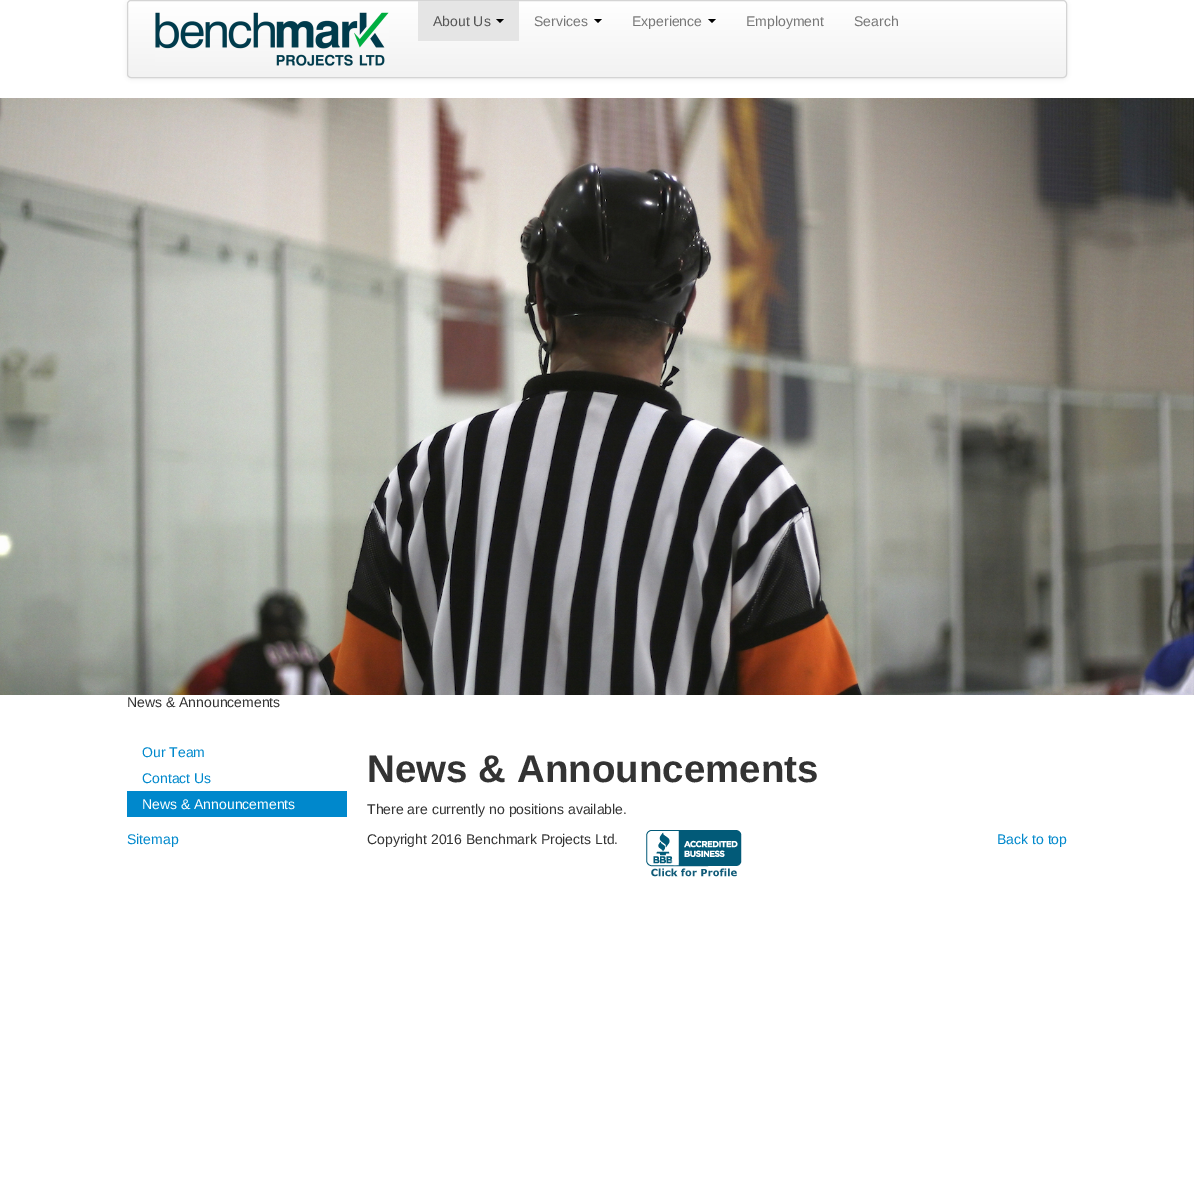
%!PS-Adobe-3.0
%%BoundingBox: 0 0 1194 1188
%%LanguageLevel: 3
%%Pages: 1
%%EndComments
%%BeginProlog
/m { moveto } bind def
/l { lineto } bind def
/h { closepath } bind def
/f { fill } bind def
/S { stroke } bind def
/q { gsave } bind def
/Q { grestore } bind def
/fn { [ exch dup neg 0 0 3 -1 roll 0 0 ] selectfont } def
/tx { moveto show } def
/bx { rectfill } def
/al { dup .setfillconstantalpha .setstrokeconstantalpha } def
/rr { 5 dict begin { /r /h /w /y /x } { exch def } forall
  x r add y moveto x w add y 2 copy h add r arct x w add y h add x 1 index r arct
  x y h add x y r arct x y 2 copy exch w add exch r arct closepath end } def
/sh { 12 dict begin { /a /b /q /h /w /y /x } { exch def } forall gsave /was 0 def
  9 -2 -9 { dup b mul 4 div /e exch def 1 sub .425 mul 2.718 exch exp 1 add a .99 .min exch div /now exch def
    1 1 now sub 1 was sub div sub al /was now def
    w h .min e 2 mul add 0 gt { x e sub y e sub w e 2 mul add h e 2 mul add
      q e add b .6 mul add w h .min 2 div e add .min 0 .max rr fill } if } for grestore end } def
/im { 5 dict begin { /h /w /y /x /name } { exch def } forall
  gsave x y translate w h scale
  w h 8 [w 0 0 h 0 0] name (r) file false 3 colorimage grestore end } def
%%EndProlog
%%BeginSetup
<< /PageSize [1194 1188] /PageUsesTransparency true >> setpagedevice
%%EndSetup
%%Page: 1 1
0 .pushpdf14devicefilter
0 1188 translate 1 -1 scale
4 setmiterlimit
1 setgray
0 0 1194 1188 bx
0 setgray
127 1 940 78 4 2 0.07 sh
q
127 0 940 78 4 rr clip newpath
q 127 1 m 1067 1 l 1067 77 l 127 77 l h clip newpath
<< /ShadingType 2 /ColorSpace /DeviceRGB /Coords [597 1 597 77] /Extend [true true] /Function << /FunctionType 2 /Domain [0 1] /C0 [1 1 1] /C1 [0.949 0.949 0.949] /N 1 >> >> shfill Q
Q
0.831 setgray
127.5 0.5 939 77 3.5 rr S
(image0.raw) 155 12 234 54 im
0.898 setgray
418 1 101 40 bx
/LiberationSans-Regular 14 fn
0.333 setgray
(About Us) 433 26 tx
0 setgray
496 19 m 504 19 l 500 23 l h f
0.467 setgray
(Services) 534 26 tx
0 setgray
594 19 m 602 19 l 598 23 l h f
0.467 setgray
(Experience) 632 26 tx
0 setgray
708 19 m 716 19 l 712 23 l h f
0.467 setgray
(Employment) 746 26 tx
(Search) 854 26 tx
(image1.raw) 0 98 1194 597 im
0.2 setgray
(News & Announcements) 127 707 tx
0 0.533 0.8 setrgbcolor
(Our Team) 142 757 tx
(Contact Us) 142 783 tx
127 791 220 26 bx
1 setgray
(News & Announcements) 142 809 tx
/LiberationSans-Bold 38.5 fn
0.2 setgray
(News & Announcements) 367 782 tx
/LiberationSans-Regular 14 fn
(There are currently no positions available.) 367 814 tx
0 0.533 0.8 setrgbcolor
(Sitemap) 127 844 tx
0.2 setgray
(Copyright 2016 Benchmark Projects Ltd.) 367 844 tx
(image2.raw) 646 830 96 47 im
0 0.533 0.8 setrgbcolor
(Back to top) 997 844 tx
.poppdf14devicefilter showpage
%%EOF
